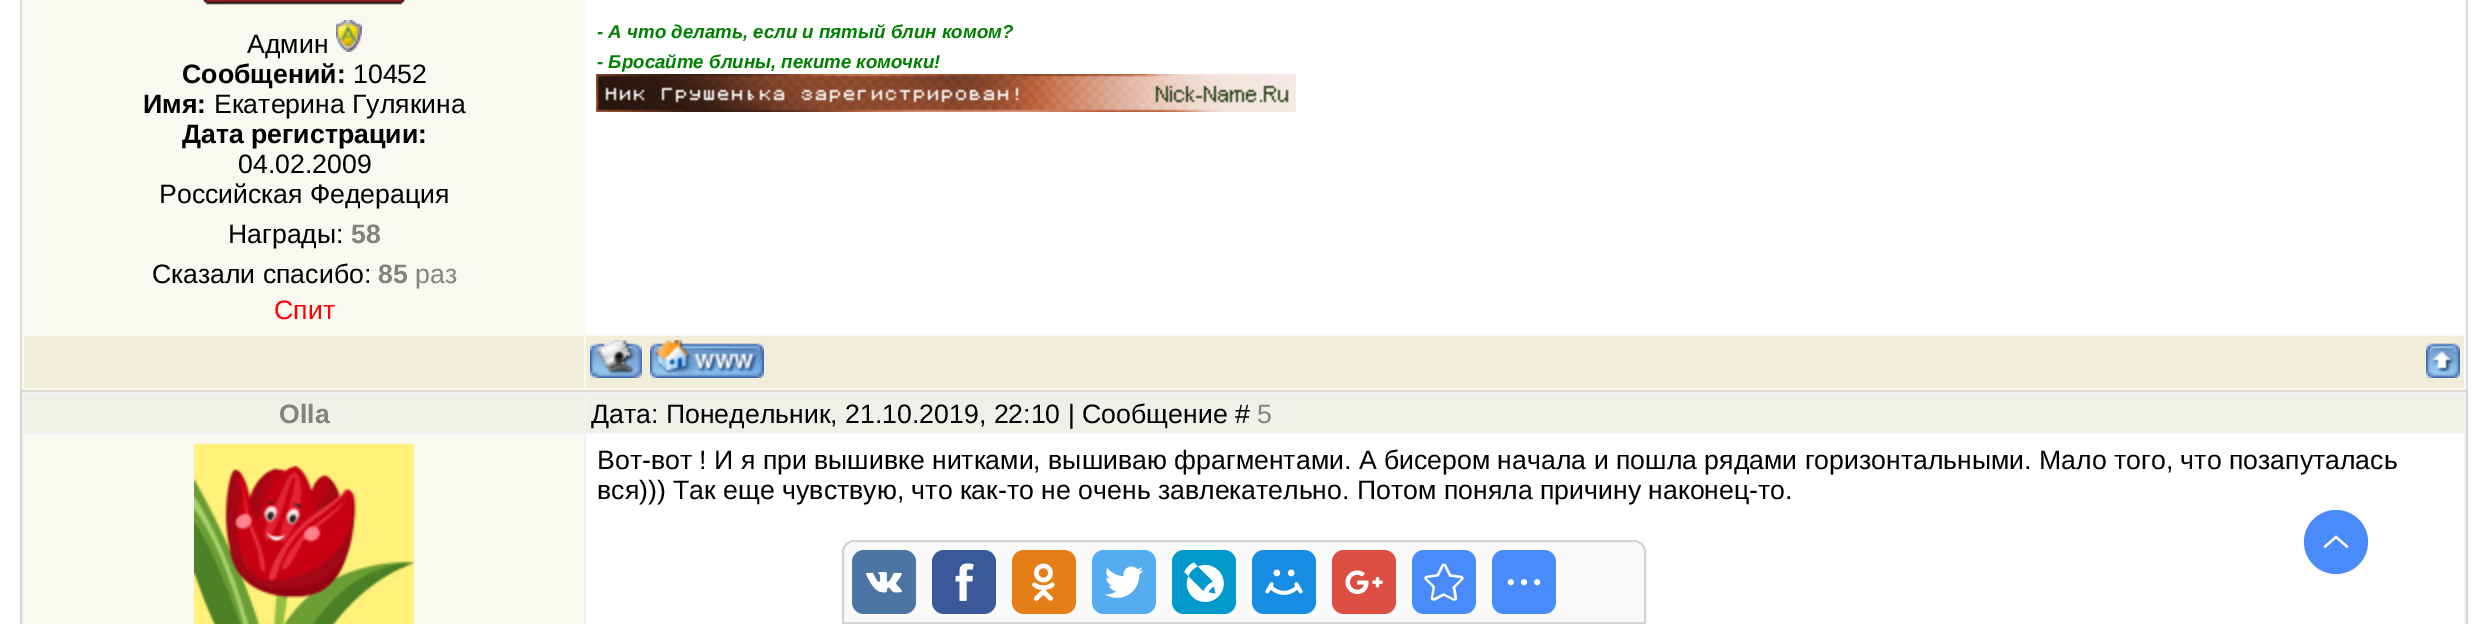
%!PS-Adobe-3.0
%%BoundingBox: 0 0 2487 624
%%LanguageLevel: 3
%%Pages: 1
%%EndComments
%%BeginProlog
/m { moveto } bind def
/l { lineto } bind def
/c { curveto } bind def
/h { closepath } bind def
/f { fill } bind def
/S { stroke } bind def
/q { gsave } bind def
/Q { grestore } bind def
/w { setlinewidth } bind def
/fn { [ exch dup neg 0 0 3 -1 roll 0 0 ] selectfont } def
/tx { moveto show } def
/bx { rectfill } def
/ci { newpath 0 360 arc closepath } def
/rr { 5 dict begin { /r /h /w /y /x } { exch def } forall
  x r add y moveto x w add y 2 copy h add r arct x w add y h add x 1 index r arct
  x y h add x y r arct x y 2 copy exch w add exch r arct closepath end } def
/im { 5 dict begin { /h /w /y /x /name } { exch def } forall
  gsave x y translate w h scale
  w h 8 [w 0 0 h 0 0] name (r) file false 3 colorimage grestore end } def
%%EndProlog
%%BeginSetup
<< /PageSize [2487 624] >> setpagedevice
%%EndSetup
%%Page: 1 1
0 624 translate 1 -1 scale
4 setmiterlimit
1 setgray
0 0 2487 624 bx
0.863 0.859 0.831 setrgbcolor
20 0 2448 624 bx
0.98 0.976 0.945 setrgbcolor
22 0 2444 390 bx
(image0.raw) 203 0 202 5 im
/LiberationSans-Regular 26.67 fn
0 setgray
(Админ) 247 53 tx
(image1.raw) 336 20 26 32 im
/LiberationSans-Bold 26.67 fn
(Сообщений:) 182 83 tx
/LiberationSans-Regular 26.67 fn
(10452) 353 83 tx
/LiberationSans-Bold 26.67 fn
(Имя:) 143 113 tx
/LiberationSans-Regular 26.67 fn
(Екатерина Гулякина) 214 113 tx
/LiberationSans-Bold 26.67 fn
(Дата регистрации:) 182 143 tx
/LiberationSans-Regular 26.67 fn
(04.02.2009) 238 173 tx
(Российская Федерация) 159 203 tx
(Награды:) 228 243 tx
/LiberationSans-Bold 26.67 fn
0.514 setgray
(58) 351 243 tx
/LiberationSans-Regular 26.67 fn
0 setgray
(Сказали спасибо:) 152 283 tx
/LiberationSans-Bold 26.67 fn
0.514 setgray
(85) 378 283 tx
/LiberationSans-Regular 26.67 fn
(раз) 415 283 tx
1 0 0 setrgbcolor
(Спит) 274 319 tx
1 setgray
586 0 1878 334 bx
/LiberationSans-BoldItalic 18.7 fn
0 0.502 0 setrgbcolor
(- А что делать, если и пятый блин комом?) 597 38 tx
(- Бросайте блины, пеките комочки!) 597 68 tx
(image2.raw) 596 74 700 38 im
0.941 0.933 0.847 setrgbcolor
24 336 560 52 bx
586 336 1878 52 bx
(image3.raw) 590 340 52 38 im
(image4.raw) 650 340 114 38 im
(image5.raw) 2426 343 34 35 im
0.945 0.949 0.953 setrgbcolor
22 392 2444 232 bx
0.945 0.941 0.91 setrgbcolor
24 394 560 38 bx
/LiberationSans-Bold 26.67 fn
0.514 setgray
(Olla) 279 423 tx
0.945 0.941 0.91 setrgbcolor
586 394 1878 38 bx
/LiberationSans-Regular 26.67 fn
0 setgray
(Дата: Понедельник, 21.10.2019, 22:10 | Сообщение #) 591 423 tx
0.514 setgray
(5) 1257 423 tx
0.98 0.976 0.945 setrgbcolor
24 434 560 190 bx
(image6.raw) 194 444 220 180 im
1 setgray
586 434 1878 190 bx
0 setgray
(Вот-вот ! И я при вышивке нитками, вышиваю фрагментами. А бисером начала и пошла рядами горизонтальными. Мало того, что позапуталась) 597 469 tx
(вся\)\)\) Так еще чувствую, что как-то не очень завлекательно. Потом поняла причину наконец-то.) 597 499 tx
0.98 setgray
854 541 m 1634 541 l 1640 541 1645 546 1645 552 c 1645 623 l 843 623 l 843 552 l 843 546 848 541 854 541 c h q f Q
0.831 setgray
2 w
S
0.302 0.459 0.639 setrgbcolor
852 550 64 64 12 rr f
(image7.raw) 865 572 37 21 im
0.231 0.349 0.596 setrgbcolor
932 550 64 64 12 rr f
(image8.raw) 955 563 19 38 im
0.902 0.494 0.09 setrgbcolor
1012 550 64 64 12 rr f
(image9.raw) 1032 563 23 38 im
0.333 0.675 0.933 setrgbcolor
1092 550 64 64 12 rr f
(image10.raw) 1105 566 39 32 im
0 0.6 0.8 setrgbcolor
1172 550 64 64 12 rr f
(image11.raw) 1184 562 40 40 im
0.086 0.553 0.886 setrgbcolor
1252 550 64 64 12 rr f
(image12.raw) 1265 569 38 26 im
0.863 0.306 0.255 setrgbcolor
1332 550 64 64 12 rr f
(image13.raw) 1345 570 38 24 im
0.286 0.545 0.98 setrgbcolor
1412 550 64 64 12 rr f
(image14.raw) 1424 563 40 38 im
1492 550 64 64 12 rr f
(image15.raw) 1507 579 34 7 im
2336 542 32 ci f
1 setgray
2347 548 m 2336 538.5 l 2325 548 l 2323.5 546.5 l 2336 535.5 l 2348.5 546.5 l h f
showpage
%%EOF
